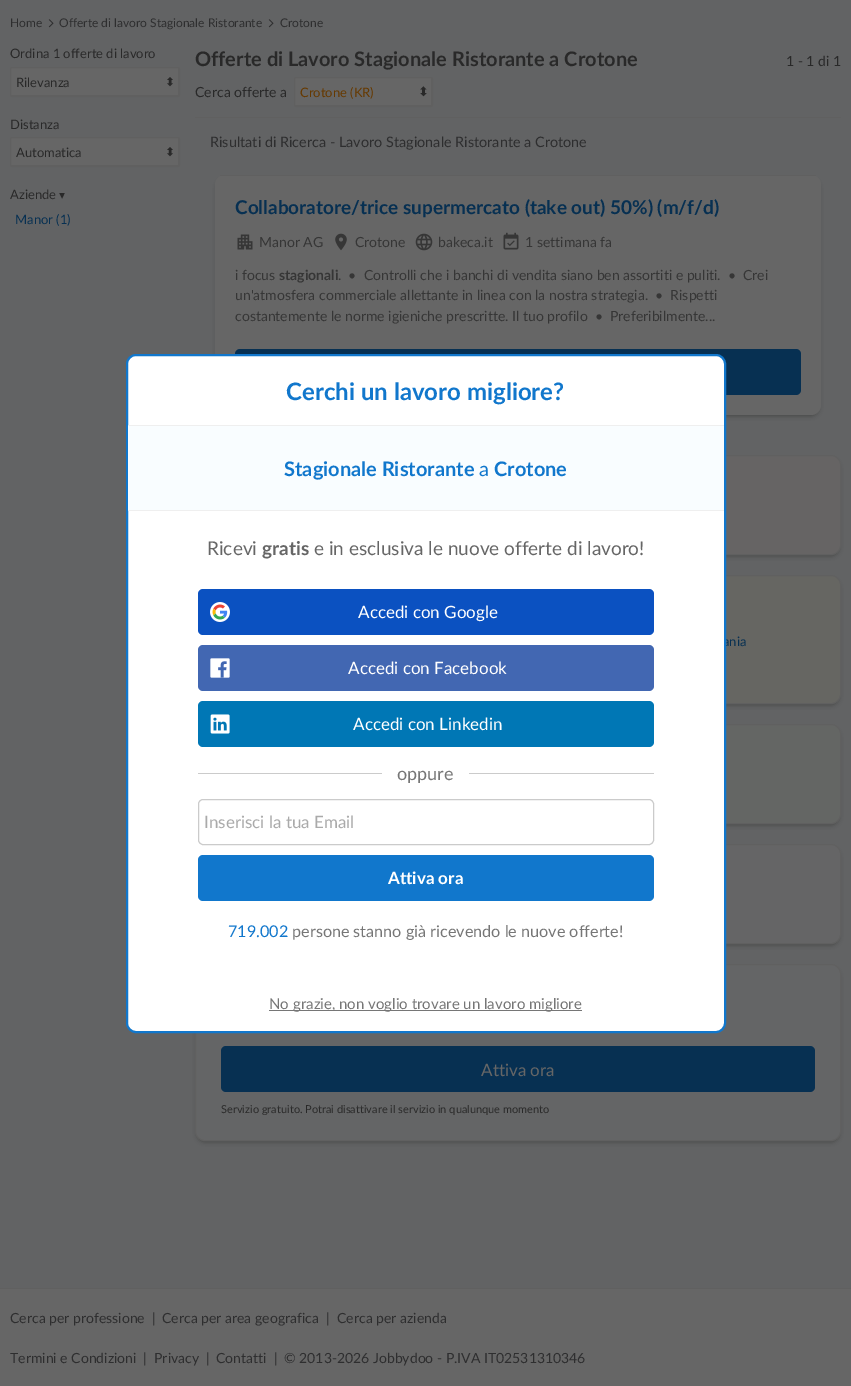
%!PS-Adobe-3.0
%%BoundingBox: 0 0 851 1386
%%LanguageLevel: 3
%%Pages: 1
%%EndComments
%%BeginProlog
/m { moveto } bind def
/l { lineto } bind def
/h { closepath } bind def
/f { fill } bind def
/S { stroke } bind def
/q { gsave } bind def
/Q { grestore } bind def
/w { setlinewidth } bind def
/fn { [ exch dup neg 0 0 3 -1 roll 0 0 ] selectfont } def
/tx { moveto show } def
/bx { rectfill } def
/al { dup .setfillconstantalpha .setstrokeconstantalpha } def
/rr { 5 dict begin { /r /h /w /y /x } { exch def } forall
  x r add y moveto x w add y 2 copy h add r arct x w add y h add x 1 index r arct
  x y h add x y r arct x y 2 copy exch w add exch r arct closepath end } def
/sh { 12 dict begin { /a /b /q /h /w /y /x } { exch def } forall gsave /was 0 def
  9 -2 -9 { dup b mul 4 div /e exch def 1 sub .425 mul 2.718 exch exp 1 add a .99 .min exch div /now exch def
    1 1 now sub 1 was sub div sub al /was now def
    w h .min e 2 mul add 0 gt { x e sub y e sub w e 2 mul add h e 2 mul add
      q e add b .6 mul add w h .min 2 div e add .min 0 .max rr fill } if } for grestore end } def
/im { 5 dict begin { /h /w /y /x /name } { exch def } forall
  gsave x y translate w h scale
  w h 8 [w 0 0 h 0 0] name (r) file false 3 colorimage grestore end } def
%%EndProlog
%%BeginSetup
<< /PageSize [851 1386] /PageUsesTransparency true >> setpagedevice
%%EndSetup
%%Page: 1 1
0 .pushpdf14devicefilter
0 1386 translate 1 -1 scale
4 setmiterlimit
0.384 0.388 0.392 setrgbcolor
0 0 851 1386 bx
/Lato-Regular 12 fn
0.18 0.18 0.184 setrgbcolor
(Home) 10 27 tx
/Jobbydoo-Medium 14.4 fn
(>) 44 27 tx
/Lato-Regular 12 fn
(Offerte di lavoro Stagionale Ristorante) 59 27 tx
/Jobbydoo-Medium 14.4 fn
(>) 264 27 tx
/Lato-Regular 12 fn
(Crotone) 280 27 tx
/Lato-Regular 13 fn
0.161 setgray
(Ordina 1 offerte di lavoro) 10 58 tx
0.4 setgray
12 68 m 178 68 l 178 95 l 11 95 l 11 69 l h f
0.376 setgray
10.5 67.5 169 29 1.5 rr S
178 68 1 28 bx
11 95 168 1 bx
0.161 setgray
(Rilevanza) 16 87 tx
/DejaVuSans-Regular 12 fn
(⬍) 165 86 tx
/Lato-Regular 13 fn
(Distanza) 10 129 tx
0.4 setgray
12 138 m 178 138 l 178 165 l 11 165 l 11 139 l h f
0.376 setgray
10.5 137.5 169 29 1.5 rr S
178 138 1 28 bx
11 165 168 1 bx
0.161 setgray
(Automatica) 16 157 tx
/DejaVuSans-Regular 12 fn
(⬍) 165 156 tx
/Lato-Regular 13 fn
(Aziende) 10 199 tx
/DejaVuSans-Regular 12 fn
(▾) 59 199 tx
/Lato-Regular 13 fn
0.027 0.188 0.322 setrgbcolor
(Manor \(1\)) 15 224 tx
0.376 setgray
195 117 646 1 bx
/Lato-Bold 20 fn
0.161 setgray
(Offerte di Lavoro Stagionale Ristorante a Crotone) 195 66 tx
/Lato-Regular 14 fn
(Cerca offerte a) 195 97 tx
0.4 setgray
296 78 m 431 78 l 431 105 l 295 105 l 295 79 l h f
0.376 setgray
294.5 77.5 138 29 1.5 rr S
431 78 1 28 bx
295 105 137 1 bx
/Lato-Regular 13 fn
0.4 0.224 0 setrgbcolor
(Crotone \(KR\)) 300 97 tx
/DejaVuSans-Regular 13 fn
0.161 setgray
(⬍) 418 96 tx
/Lato-Regular 14 fn
(1 - 1 di 1) 786 66 tx
/Lato-Regular 14.4 fn
0.18 0.18 0.184 setrgbcolor
(Risultati di Ricerca - Lavoro Stagionale Ristorante a Crotone) 210 147 tx
0 setgray
217 180 602 236 8 2.5 0.3 sh
0.4 setgray
215 175 606 240 10 rr f
0.376 setgray
220 175 596 1 bx
/Lato-Bold 19 fn
0.027 0.188 0.322 setrgbcolor
(Collaboratore/trice supermercato \(take out\) 50%\) \(m/f/d\)) 235 214 tx
(image0.raw) 237 234 16 16 im
/Lato-Regular 14 fn
0.212 setgray
(Manor AG) 259 247 tx
(image1.raw) 335 233 12 18 im
(Crotone) 355 247 tx
(image2.raw) 415 233 18 18 im
(bakeca.it) 438 247 tx
(image3.raw) 503 232 16 18 im
(1 settimana fa) 525 247 tx
(i focus) 235 280 tx
/Lato-Bold 14 fn
(stagionali) 279 280 tx
/Lato-Regular 14 fn
(.  •  Controlli che i banchi di vendita siano ben assortiti e puliti.  •  Crei) 338 280 tx
(un'atmosfera commerciale allettante in linea con la nostra strategia.  •  Rispetti) 235 300 tx
(costantemente le norme igieniche prescritte. Il tuo profilo  •  Preferibilmente...) 235 321 tx
0.027 0.188 0.322 setrgbcolor
235 349 566 46 5 rr f
0 setgray
197 460 642 96 8 2.5 0.3 sh
0.4 0.392 0.392 setrgbcolor
195.5 455.5 645 99 9.5 rr q f Q
0.376 setgray
S
0 setgray
197 580 642 125 8 2.5 0.3 sh
0.4 0.4 0.384 setrgbcolor
195.5 575.5 645 128 9.5 rr q f Q
0.376 setgray
S
/Lato-Regular 13 fn
0.027 0.188 0.322 setrgbcolor
(ania) 723 646 tx
0 setgray
197 729 642 96 8 2.5 0.3 sh
0.392 0.4 0.392 setrgbcolor
195.5 724.5 645 99 9.5 rr q f Q
0.376 setgray
S
0 setgray
197 849 642 96 8 2.5 0.3 sh
0.396 0.396 0.4 setrgbcolor
195.5 844.5 645 99 9.5 rr q f Q
0.376 setgray
S
0 setgray
197 969 642 173 8 2.5 0.3 sh
0.392 0.396 0.4 setrgbcolor
195.5 964.5 645 176 9.5 rr q f Q
0.376 setgray
S
0.027 0.188 0.322 setrgbcolor
221 1046 594 46 5 rr f
/Lato-Regular 17 fn
0.4 setgray
(Attiva ora) 481 1076 tx
/Lato-Regular 11 fn
0.161 setgray
(Servizio gratuito. Potrai disattivare il servizio in qualunque momento) 221 1113 tx
0.4 setgray
0 1289 851 97 bx
0.376 setgray
0 1288 851 1 bx
/Lato-Regular 14 fn
0.18 0.18 0.184 setrgbcolor
(Cerca per professione) 10 1323 tx
(|) 152 1323 tx
(Cerca per area geografica) 162 1323 tx
(|) 326 1323 tx
(Cerca per azienda) 337 1323 tx
(Termini e Condizioni) 10 1363 tx
(|) 143 1363 tx
(Privacy) 154 1363 tx
(|) 206 1363 tx
(Contatti) 216 1363 tx
(|) 274 1363 tx
(© 2013-2026 Jobbydoo - P.IVA IT02531310346) 284 1363 tx
1 setgray
127 355 598 677 9 rr q f Q
0.067 0.467 0.8 setrgbcolor
2 w
S
/Lato-Bold 24 fn
(Cerchi un lavoro migliore?) 286 400 tx
0.976 0.992 1 setrgbcolor
128 426 596 84 bx
0.937 setgray
128 425 596 1 bx
128 510 596 1 bx
/Lato-Bold 20 fn
0.067 0.467 0.8 setrgbcolor
(Stagionale Ristorante) 284 476 tx
/Lato-Regular 20 fn
(a) 479 476 tx
/Lato-Bold 20 fn
(Crotone) 494 476 tx
/Lato-Regular 19 fn
0.4 setgray
(Ricevi) 207 555 tx
/Lato-Bold 19 fn
(gratis) 262 555 tx
/Lato-Regular 19 fn
(e in esclusiva le nuove offerte di lavoro!) 314 555 tx
0.043 0.318 0.757 setrgbcolor
198 589 456 46 5 rr f
(image4.raw) 210 602 20 20 im
/Lato-Regular 17 fn
1 setgray
(Accedi con Google) 358 618 tx
0.259 0.404 0.698 setrgbcolor
198 645 456 46 5 rr f
(image5.raw) 210 658 20 20 im
1 setgray
(Accedi con Facebook) 348 674 tx
0 0.467 0.71 setrgbcolor
198 701 456 46 5 rr f
(image6.raw) 210 714 20 20 im
1 setgray
(Accedi con Linkedin) 353 730 tx
0.796 setgray
198 773 456 1 bx
1 setgray
382 773 87 1 bx
/Lato-Regular 18 fn
0.463 setgray
(oppure) 397 780 tx
0.796 setgray
1 w
198.5 799.5 455 45 4.5 rr S
/Lato-Regular 17 fn
0.667 setgray
(Inserisci la tua Email) 204 828 tx
0.067 0.467 0.8 setrgbcolor
198 855 456 46 5 rr f
/Lato-Bold 17 fn
1 setgray
(Attiva ora) 388 884 tx
/Lato-Regular 16.2 fn
0.067 0.467 0.8 setrgbcolor
(719.002) 228 937 tx
0.463 setgray
(persone stanno già ricevendo le nuove offerte!) 292 937 tx
269 1010 313 1 bx
/Lato-Regular 15 fn
(No grazie, non voglio trovare un lavoro migliore) 269 1009 tx
.poppdf14devicefilter showpage
%%EOF
